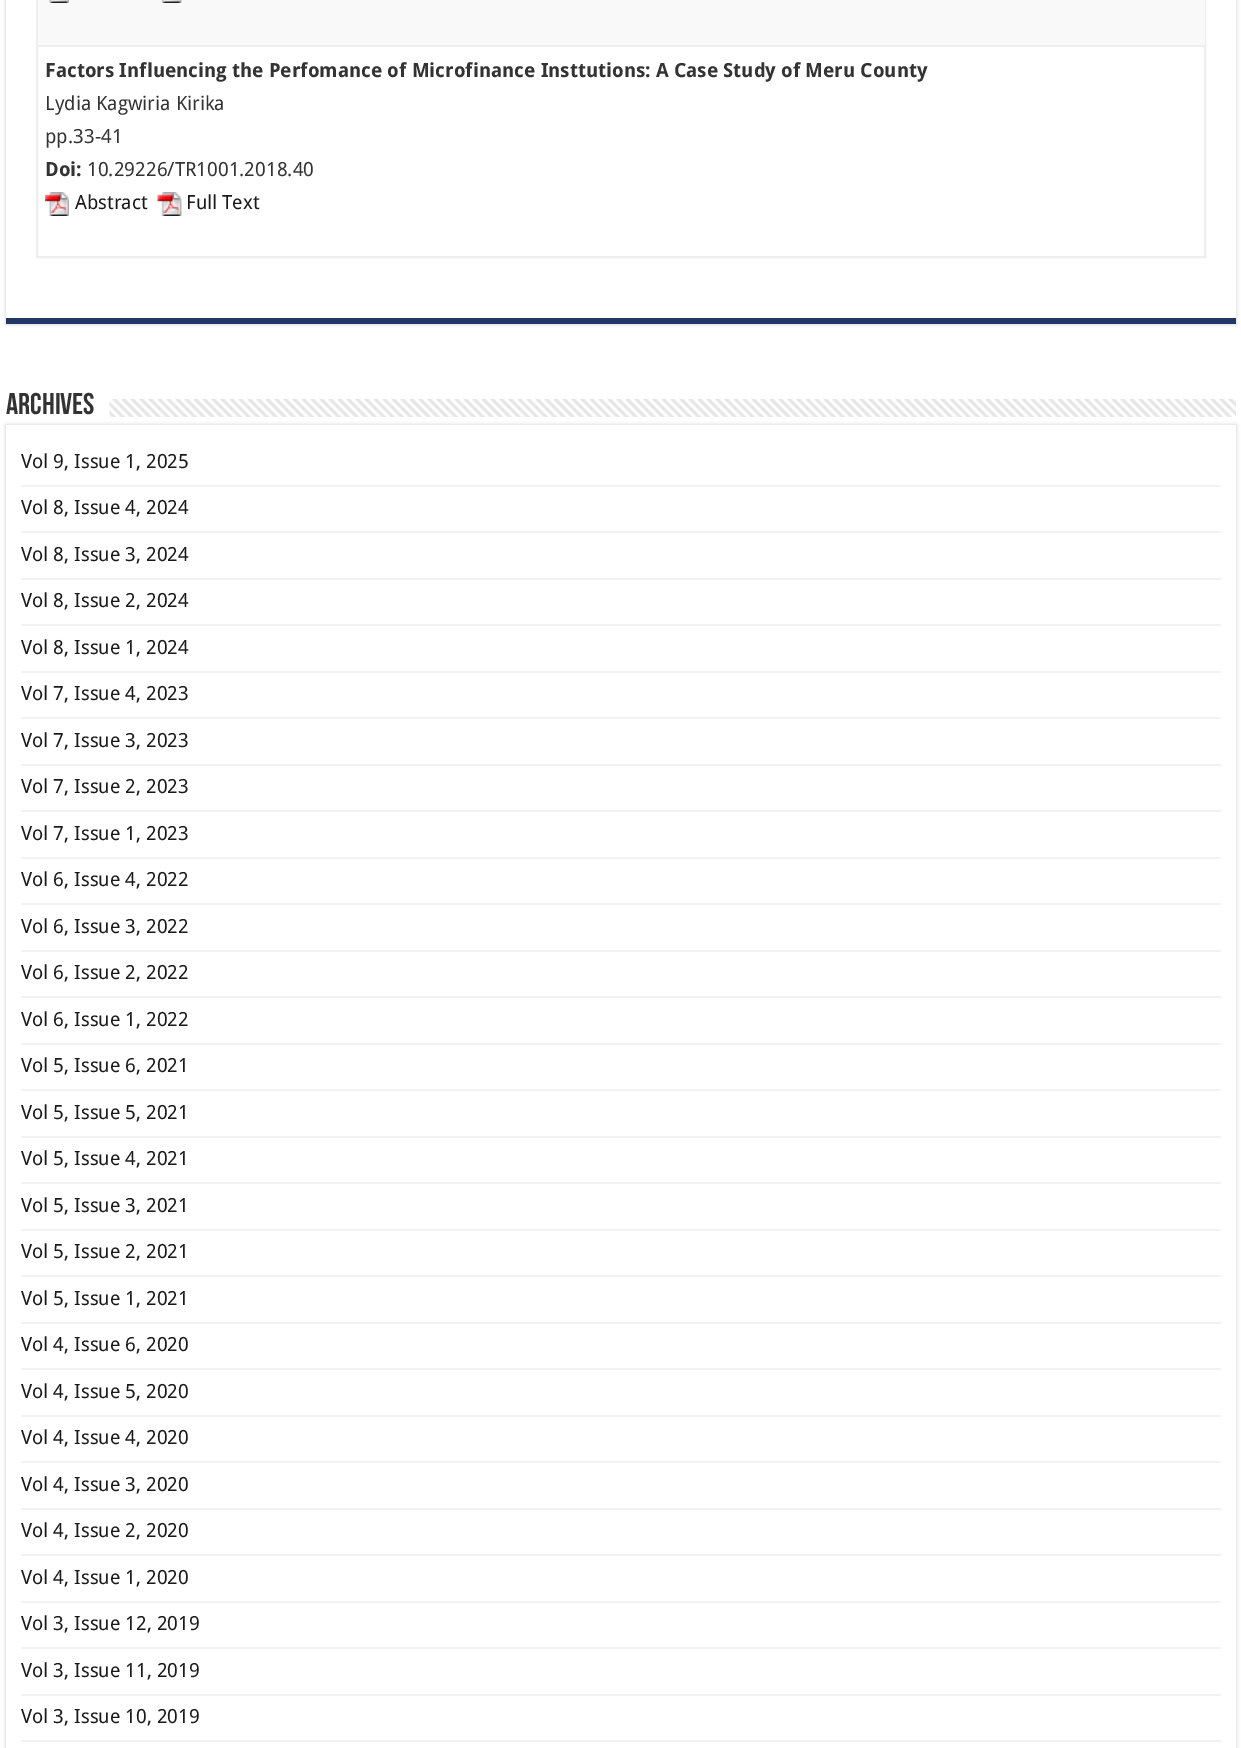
%!PS-Adobe-3.0
%%BoundingBox: 0 0 1241 1748
%%LanguageLevel: 3
%%Pages: 1
%%EndComments
%%BeginProlog
/m { moveto } bind def
/l { lineto } bind def
/h { closepath } bind def
/q { gsave } bind def
/Q { grestore } bind def
/w { setlinewidth } bind def
/fn { [ exch dup neg 0 0 3 -1 roll 0 0 ] selectfont } def
/tx { moveto show } def
/bx { rectfill } def
/al { dup .setfillconstantalpha .setstrokeconstantalpha } def
/rr { 5 dict begin { /r /h /w /y /x } { exch def } forall
  x r add y moveto x w add y 2 copy h add r arct x w add y h add x 1 index r arct
  x y h add x y r arct x y 2 copy exch w add exch r arct closepath end } def
/sh { 12 dict begin { /a /b /q /h /w /y /x } { exch def } forall gsave /was 0 def
  9 -2 -9 { dup b mul 4 div /e exch def 1 sub .425 mul 2.718 exch exp 1 add a .99 .min exch div /now exch def
    1 1 now sub 1 was sub div sub al /was now def
    w h .min e 2 mul add 0 gt { x e sub y e sub w e 2 mul add h e 2 mul add
      q e add b .6 mul add w h .min 2 div e add .min 0 .max rr fill } if } for grestore end } def
/im { 5 dict begin { /h /w /y /x /name } { exch def } forall
  gsave x y translate w h scale
  w h 8 [w 0 0 h 0 0] name (r) file false 3 colorimage grestore end } def
%%EndProlog
%%BeginSetup
<< /PageSize [1241 1748] /PageUsesTransparency true >> setpagedevice
%%EndSetup
%%Page: 1 1
0 .pushpdf14devicefilter
0 1748 translate 1 -1 scale
4 setmiterlimit
1 setgray
0 0 1241 1748 bx
q
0 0 m 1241 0 l 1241 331 l 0 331 l h 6 -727 m 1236 -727 l 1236 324 l 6 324 l h eoclip newpath
0.792 setgray
6 -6 1230 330 0 2 1 sh
Q
0.133 0.216 0.388 setrgbcolor
6 318 1230 6 bx
0.933 setgray
2 w
37 -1 1168 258 rectstroke
0.976 setgray
38 0 1167 45 bx
0.933 setgray
38 45 1167 2 bx
(image0.raw) 49 0 20 3 im
(image1.raw) 161 0 21 3 im
/DroidSans-Bold 19.5 fn
0.2 setgray
(Factors Influencing the Perfomance of Microfinance Insttutions: A Case Study of Meru County) 45 77 tx
/DroidSans-Regular 19.5 fn
(Lydia Kagwiria Kirika) 45 110 tx
(pp.33-41) 45 143 tx
/DroidSans-Bold 19.5 fn
(Doi:) 45 176 tx
/DroidSans-Regular 19.5 fn
(10.29226/TR1001.2018.40) 87 176 tx
(image2.raw) 45 192 24 24 im
0.102 setgray
(Abstract) 75 209 tx
(image3.raw) 157 192 25 24 im
(Full Text) 186 209 tx
/BebasNeue-Bold 30 fn
0.2 setgray
(Archives) 6 414 tx
(image4.raw) 109 399 1127 18 im
q
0 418 m 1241 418 l 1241 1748 l 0 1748 l h 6 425 m 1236 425 l 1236 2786 l 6 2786 l h eoclip newpath
0.792 setgray
6 425 1230 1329 0 2 1 sh
Q
0.949 setgray
21 485 1200 2 bx
/DroidSans-Regular 19.5 fn
0.102 setgray
(Vol 9, Issue 1, 2025) 21 468 tx
0.949 setgray
21 531 1200 2 bx
0.102 setgray
(Vol 8, Issue 4, 2024) 21 514 tx
0.949 setgray
21 578 1200 2 bx
0.102 setgray
(Vol 8, Issue 3, 2024) 21 561 tx
0.949 setgray
21 624 1200 2 bx
0.102 setgray
(Vol 8, Issue 2, 2024) 21 607 tx
0.949 setgray
21 671 1200 2 bx
0.102 setgray
(Vol 8, Issue 1, 2024) 21 654 tx
0.949 setgray
21 717 1200 2 bx
0.102 setgray
(Vol 7, Issue 4, 2023) 21 700 tx
0.949 setgray
21 764 1200 2 bx
0.102 setgray
(Vol 7, Issue 3, 2023) 21 747 tx
0.949 setgray
21 810 1200 2 bx
0.102 setgray
(Vol 7, Issue 2, 2023) 21 793 tx
0.949 setgray
21 857 1200 2 bx
0.102 setgray
(Vol 7, Issue 1, 2023) 21 840 tx
0.949 setgray
21 903 1200 2 bx
0.102 setgray
(Vol 6, Issue 4, 2022) 21 886 tx
0.949 setgray
21 950 1200 2 bx
0.102 setgray
(Vol 6, Issue 3, 2022) 21 933 tx
0.949 setgray
21 996 1200 2 bx
0.102 setgray
(Vol 6, Issue 2, 2022) 21 979 tx
0.949 setgray
21 1043 1200 2 bx
0.102 setgray
(Vol 6, Issue 1, 2022) 21 1026 tx
0.949 setgray
21 1089 1200 2 bx
0.102 setgray
(Vol 5, Issue 6, 2021) 21 1072 tx
0.949 setgray
21 1136 1200 2 bx
0.102 setgray
(Vol 5, Issue 5, 2021) 21 1119 tx
0.949 setgray
21 1182 1200 2 bx
0.102 setgray
(Vol 5, Issue 4, 2021) 21 1165 tx
0.949 setgray
21 1229 1200 2 bx
0.102 setgray
(Vol 5, Issue 3, 2021) 21 1212 tx
0.949 setgray
21 1275 1200 2 bx
0.102 setgray
(Vol 5, Issue 2, 2021) 21 1258 tx
0.949 setgray
21 1322 1200 2 bx
0.102 setgray
(Vol 5, Issue 1, 2021) 21 1305 tx
0.949 setgray
21 1368 1200 2 bx
0.102 setgray
(Vol 4, Issue 6, 2020) 21 1351 tx
0.949 setgray
21 1415 1200 2 bx
0.102 setgray
(Vol 4, Issue 5, 2020) 21 1398 tx
0.949 setgray
21 1461 1200 2 bx
0.102 setgray
(Vol 4, Issue 4, 2020) 21 1444 tx
0.949 setgray
21 1508 1200 2 bx
0.102 setgray
(Vol 4, Issue 3, 2020) 21 1491 tx
0.949 setgray
21 1554 1200 2 bx
0.102 setgray
(Vol 4, Issue 2, 2020) 21 1537 tx
0.949 setgray
21 1601 1200 2 bx
0.102 setgray
(Vol 4, Issue 1, 2020) 21 1584 tx
0.949 setgray
21 1647 1200 2 bx
0.102 setgray
(Vol 3, Issue 12, 2019) 21 1630 tx
0.949 setgray
21 1694 1200 2 bx
0.102 setgray
(Vol 3, Issue 11, 2019) 21 1677 tx
0.949 setgray
21 1740 1200 2 bx
0.102 setgray
(Vol 3, Issue 10, 2019) 21 1723 tx
.poppdf14devicefilter showpage
%%EOF
